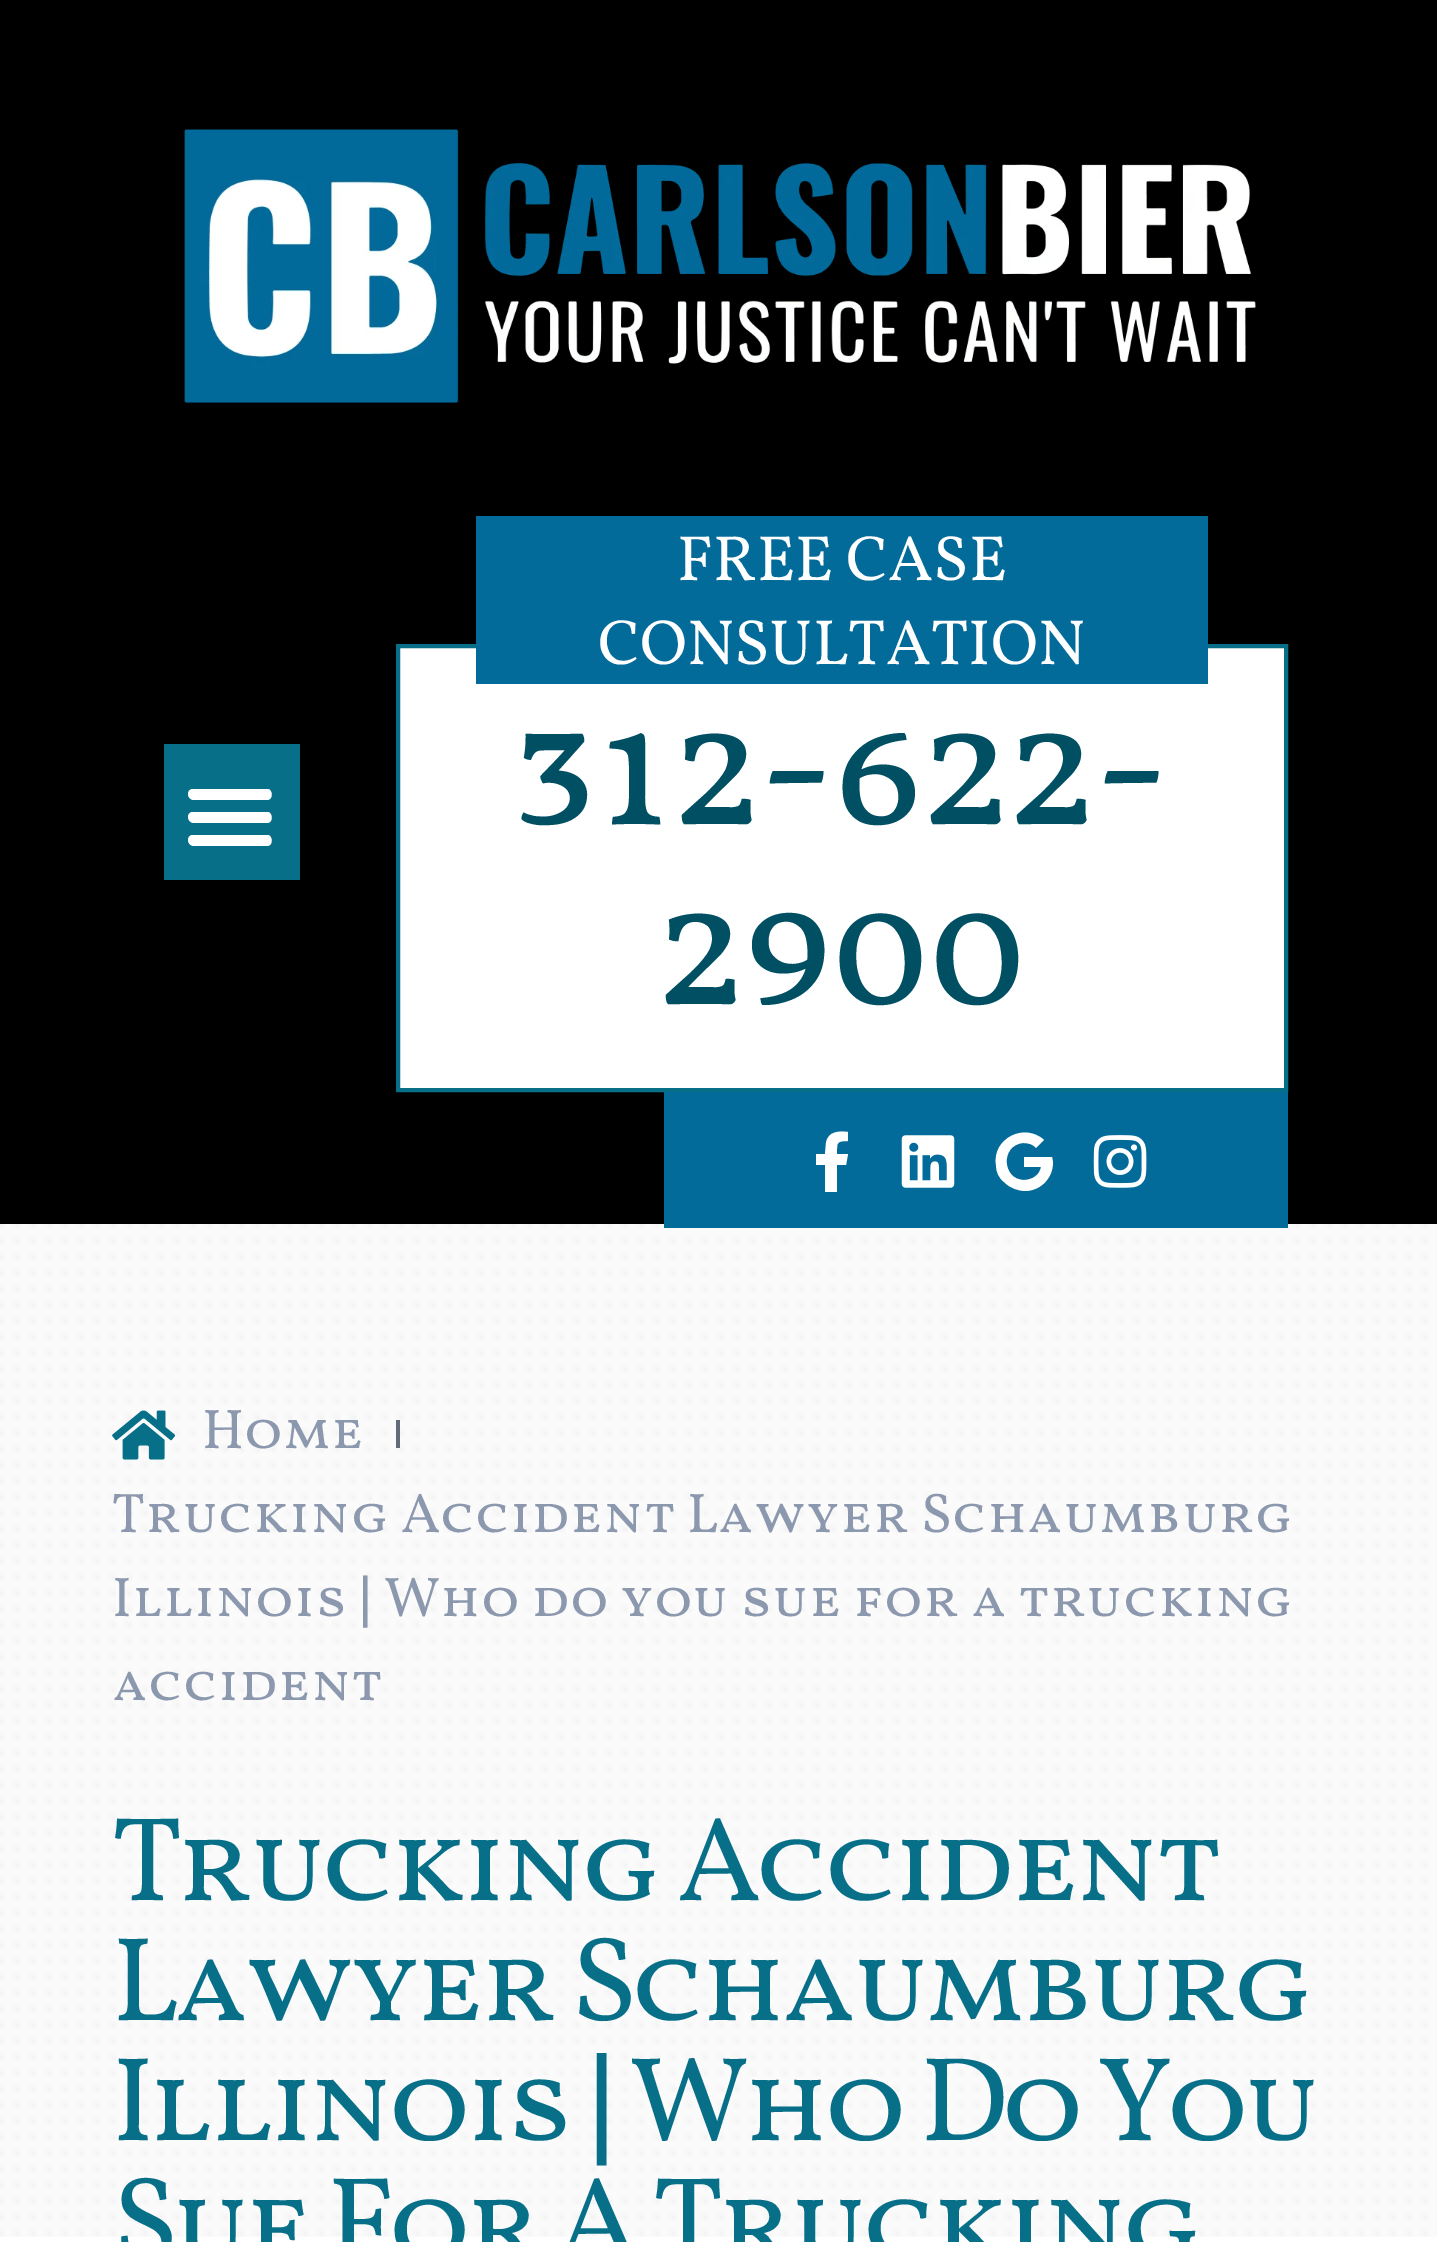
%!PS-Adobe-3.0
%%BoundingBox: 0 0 1437 2242
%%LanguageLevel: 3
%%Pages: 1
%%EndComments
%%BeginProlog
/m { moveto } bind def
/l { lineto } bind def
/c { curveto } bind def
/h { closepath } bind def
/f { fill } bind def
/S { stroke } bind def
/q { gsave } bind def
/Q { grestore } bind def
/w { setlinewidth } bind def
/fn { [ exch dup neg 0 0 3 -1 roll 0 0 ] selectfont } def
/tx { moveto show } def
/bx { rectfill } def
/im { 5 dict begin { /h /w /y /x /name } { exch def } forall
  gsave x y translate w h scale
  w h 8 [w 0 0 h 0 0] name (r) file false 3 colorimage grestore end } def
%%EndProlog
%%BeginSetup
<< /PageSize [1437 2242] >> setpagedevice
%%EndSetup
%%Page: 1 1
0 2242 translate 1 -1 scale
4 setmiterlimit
1 setgray
0 0 1437 2242 bx
0 setgray
0 0 1437 1224 bx
(image0.raw) 184 129 1072 274 im
0.027 0.439 0.533 setrgbcolor
164 744 136 136 bx
1 setgray
194 800 m 268 800 l 270 799 l 273 796 272 790 268 789 c 192 789 l 186 790 187 800 194 800 c h 194 823 m 268 823 l 270 822 l 273 819 272 813 268 812 c 192 812 l 186 813 187 823 194 823 c h 194 846 m 268 846 l 270 845 l 273 842 272 836 268 835 c 192 835 l 186 836 187 846 194 846 c h f
398 646 m 1286 646 l 1286 1090 l 398 1090 l h q f Q
0.027 0.439 0.533 setrgbcolor
4 w
S
0.008 0.42 0.604 setrgbcolor
476 516 732 168 bx
/VollkornSC-Regular 64 fn
1 setgray
(FREE CASE) 677 580 tx
(CONSULTATION) 598 664 tx
/VollkornSC-Regular 180 fn
0 0.31 0.384 setrgbcolor
(312-622-) 513 824 tx
(2900) 658 1004 tx
(image3.raw) 0 1224 1437 1013 im
0.008 0.42 0.604 setrgbcolor
664 1092 624 136 bx
1 setgray
846 1165 m 837 1165 l 837 1192 l 825 1192 l 825 1165 l 816 1165 l 816 1154 l 825 1154 l 826 1143 l 828 1131 839 1131 848 1132 c 848 1141 l 836 1141 837 1143 837 1154 c 848 1154 l h f
(image1.raw) 901 1135 54 53 im
1053 1162 m 1053 1177 1042 1190 1026 1191 c 1018 1191 1010 1188 1004 1182 c 999 1178 996 1172 996 1165 c 992 1139 1024 1122 1044 1140 c 1036 1148 l 1033 1144 1028 1143 1023 1143 c 1000 1145 1002 1180 1024 1180 c 1032 1180 1040 1175 1041 1167 c 1024 1167 l 1024 1157 l 1052 1157 l h f
(image2.raw) 1093 1135 54 53 im
(image4.raw) 112 1410 64 50 im
/VollkornSC-Regular 56 fn
0.545 0.596 0.682 setrgbcolor
(Home) 202 1448 tx
0.388 0.42 0.471 setrgbcolor
396 1420 4 28 bx
0.545 0.596 0.682 setrgbcolor
(Trucking Accident Lawyer Schaumburg) 112 1532 tx
(Illinois) 112 1616 tx
/LiberationSans-Regular 56 fn
(|) 358 1616 tx
/VollkornSC-Regular 56 fn
(Who do you sue for a trucking) 384 1616 tx
(accident) 112 1700 tx
/VollkornSC-Regular 120 fn
0.027 0.439 0.533 setrgbcolor
112 1900 m -6 0 (Trucking Accident) ashow
112 2020 m -6 0 (Lawyer Schaumburg) ashow
112 2140 m -6 0 (Illinois) ashow
/LiberationSans-Regular 120 fn
586 2140 m -6 0 (|) ashow
/VollkornSC-Regular 120 fn
629 2140 m -6 0 (Who Do You) ashow
112 2260 m -6 0 (Sue For A Trucking) ashow
showpage
%%EOF
